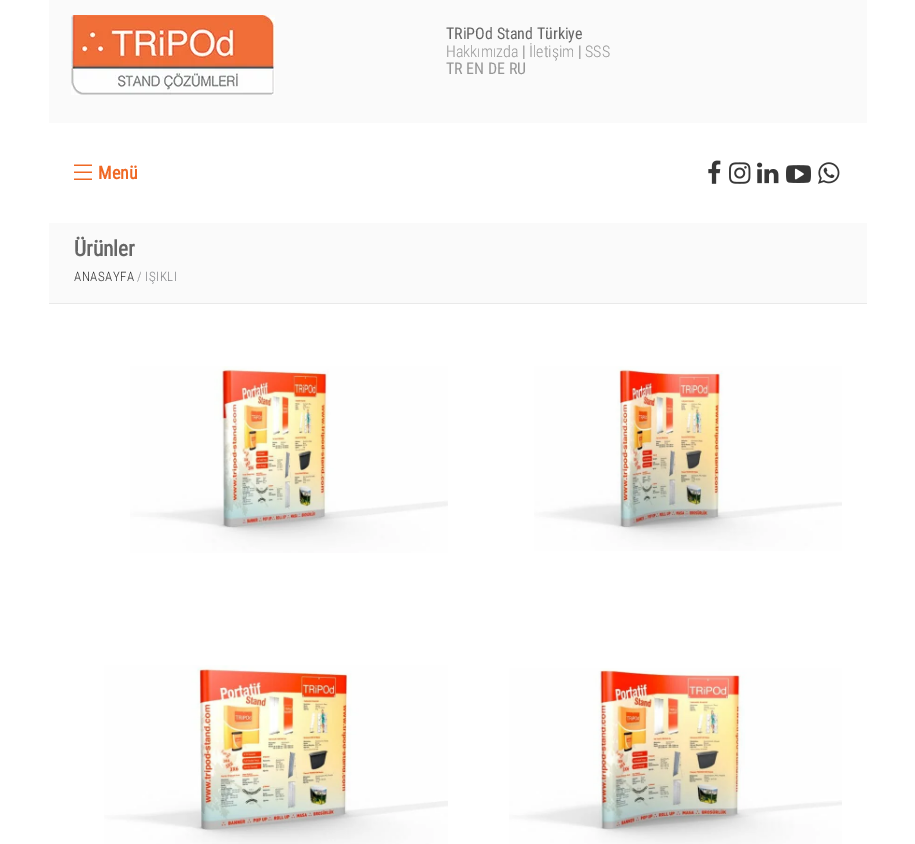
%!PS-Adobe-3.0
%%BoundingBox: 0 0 915 844
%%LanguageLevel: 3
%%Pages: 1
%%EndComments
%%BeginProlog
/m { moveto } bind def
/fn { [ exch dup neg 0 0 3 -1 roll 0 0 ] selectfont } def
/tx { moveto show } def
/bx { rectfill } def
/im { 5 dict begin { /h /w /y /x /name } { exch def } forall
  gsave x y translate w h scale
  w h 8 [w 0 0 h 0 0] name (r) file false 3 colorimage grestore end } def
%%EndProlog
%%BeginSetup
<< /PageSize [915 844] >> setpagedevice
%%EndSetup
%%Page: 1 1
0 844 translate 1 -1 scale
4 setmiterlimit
1 setgray
0 0 915 844 bx
0.98 setgray
49 0 818 123 bx
(image0.raw) 71 15 204 80 im
/RobotoCondensed-Regular 16 fn
0.4 setgray
(TRiPOd Stand Türkiye) 446 39 tx
/RobotoCondensed-Light 16 fn
0.588 setgray
(Hakkımızda) 446 57 tx
0.4 setgray
(|) 522 57 tx
0.588 setgray
(İletişim) 529 57 tx
0.4 setgray
(|) 578 57 tx
0.588 setgray
(SSS) 585 57 tx
/RobotoCondensed-Regular 16 fn
(TR EN DE RU) 446 74 tx
0.937 0.408 0.141 setrgbcolor
74 165 18 1 bx
0.969 0.706 0.573 setrgbcolor
74 164 18 1 bx
0.937 0.408 0.141 setrgbcolor
74 172 18 1 bx
0.969 0.706 0.573 setrgbcolor
74 171 18 1 bx
0.937 0.408 0.141 setrgbcolor
74 179 18 1 bx
0.969 0.706 0.573 setrgbcolor
74 178 18 1 bx
/RobotoCondensed-Bold 18 fn
0.937 0.408 0.141 setrgbcolor
(Menü) 98 179 tx
(image1.raw) 708 160 13 24 im
(image2.raw) 729 162 22 22 im
(image3.raw) 757 162 22 22 im
(image4.raw) 786 165 25 18 im
(image5.raw) 818 162 22 22 im
0.98 setgray
49 223 818 80 bx
0.914 setgray
49 303 818 1 bx
/RobotoCondensed-Bold 21.5 fn
0.4 setgray
(Ürünler) 74 256 tx
/RobotoCondensed-Light 13 fn
0.176 setgray
74 281 m 0.5 0 (ANASAYFA) ashow
0.502 0.51 0.522 setrgbcolor
137 281 m 0.5 0 (/) ashow
145 281 m 0.5 0 (IŞIKLI) ashow
(image6.raw) 130 366 318 187 im
(image7.raw) 534 366 308 185 im
(image8.raw) 104 665 344 179 im
(image9.raw) 509 668 333 176 im
showpage
%%EOF
